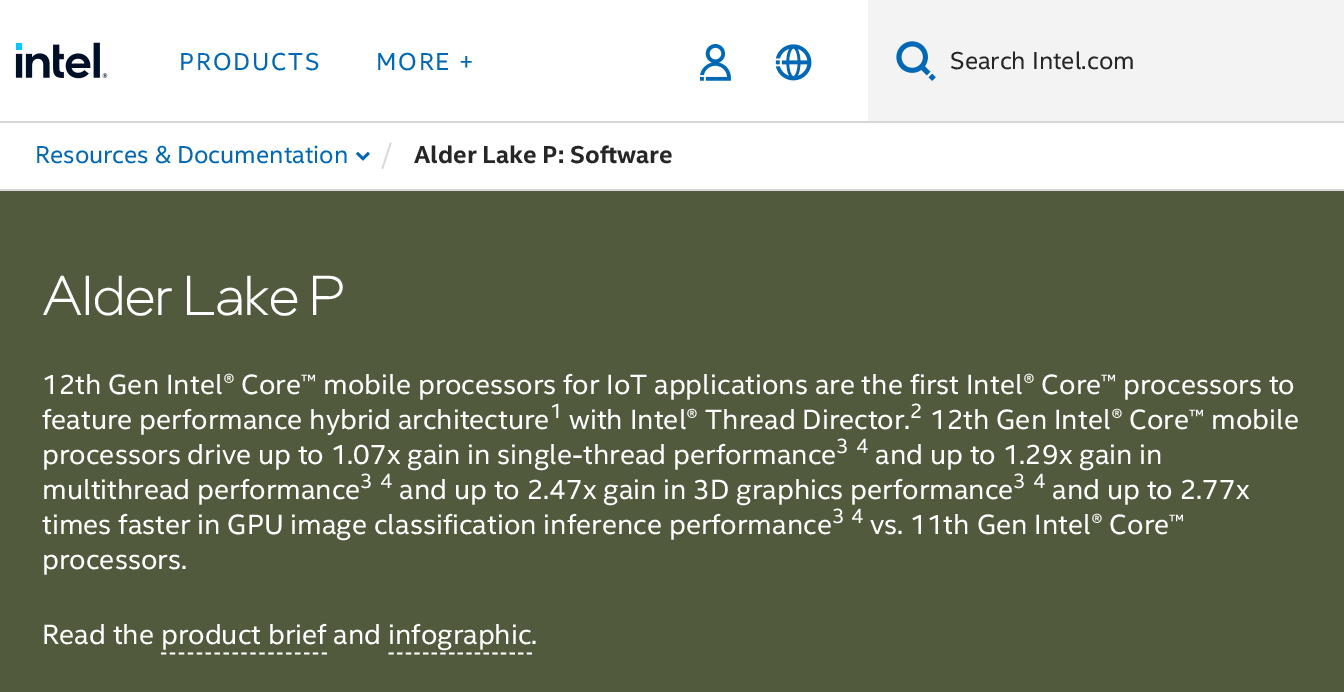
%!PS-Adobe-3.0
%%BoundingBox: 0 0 1344 692
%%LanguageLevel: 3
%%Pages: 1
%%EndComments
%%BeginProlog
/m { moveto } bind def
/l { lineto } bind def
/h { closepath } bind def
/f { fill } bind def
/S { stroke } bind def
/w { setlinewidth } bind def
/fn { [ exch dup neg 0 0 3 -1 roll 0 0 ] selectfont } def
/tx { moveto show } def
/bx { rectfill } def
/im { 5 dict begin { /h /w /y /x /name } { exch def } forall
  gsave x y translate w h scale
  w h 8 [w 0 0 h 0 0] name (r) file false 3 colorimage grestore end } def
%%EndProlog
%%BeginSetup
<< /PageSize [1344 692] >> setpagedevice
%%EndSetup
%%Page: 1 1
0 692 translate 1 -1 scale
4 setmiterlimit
1 setgray
0 0 1344 692 bx
0.843 setgray
0 121 1344 2 bx
(image0.raw) 15 42 93 37 im
/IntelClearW-Regular 24.5 fn
0 0.408 0.71 setrgbcolor
179 70 m 1.75 0 (PRODUCTS) ashow
376 70 m 1.75 0 (MORE +) ashow
(image1.raw) 700 44 31 37 im
(image2.raw) 775 44 37 37 im
0.953 setgray
868 0 476 121 bx
(image3.raw) 896 41 40 40 im
0.149 setgray
(Search Intel.com) 950 69 tx
0.843 setgray
0 189 1344 2 bx
0 0.408 0.71 setrgbcolor
(Resources & Documentation) 35 163 tx
(image4.raw) 356 151 14 10 im
0.843 setgray
390 142.5 m 391.5 143 l 383 169 l 381.5 168.5 l h f
/IntelClearW-Bold 24.5 fn
0.149 setgray
(Alder Lake P: Software) 414 163 tx
0.318 0.353 0.239 setrgbcolor
0 191 1344 501 bx
/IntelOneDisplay-Light 56 fn
1 setgray
(Alder Lake P) 42 315 tx
/IntelClearW-Regular 28 fn
(12th Gen Intel® Core™ mobile processors for IoT applications are the first Intel® Core™ processors to) 42 394 tx
(feature performance hybrid architecture) 42 429 tx
/IntelClearW-Regular 21 fn
(1) 550 418 tx
/IntelClearW-Regular 28 fn
(with Intel® Thread Director.) 569 429 tx
/IntelClearW-Regular 21 fn
(2) 910 418 tx
/IntelClearW-Regular 28 fn
(12th Gen Intel® Core™ mobile) 930 429 tx
(processors drive up to 1.07x gain in single-thread performance) 42 464 tx
/IntelClearW-Regular 21 fn
(3) 836 453 tx
(4) 856 453 tx
/IntelClearW-Regular 28 fn
(and up to 1.29x gain in) 875 464 tx
(multithread performance) 42 499 tx
/IntelClearW-Regular 21 fn
(3) 360 488 tx
(4) 380 488 tx
/IntelClearW-Regular 28 fn
(and up to 2.47x gain in 3D graphics performance) 399 499 tx
/IntelClearW-Regular 21 fn
(3) 1013 488 tx
(4) 1033 488 tx
/IntelClearW-Regular 28 fn
(and up to 2.77x) 1052 499 tx
(times faster in GPU image classification inference performance) 42 534 tx
/IntelClearW-Regular 21 fn
(3) 832 523 tx
(4) 851 523 tx
/IntelClearW-Regular 28 fn
(vs. 11th Gen Intel® Core™) 870 534 tx
(processors.) 42 569 tx
(Read the product brief and infographic.) 42 644 tx
1.8 w
[5.25 3.69] 0 setdash
161 653.5 m 327 653.5 l S
[5.25 3.4] 0 setdash
388.5 653.5 m 532 653.5 l S
showpage
%%EOF
